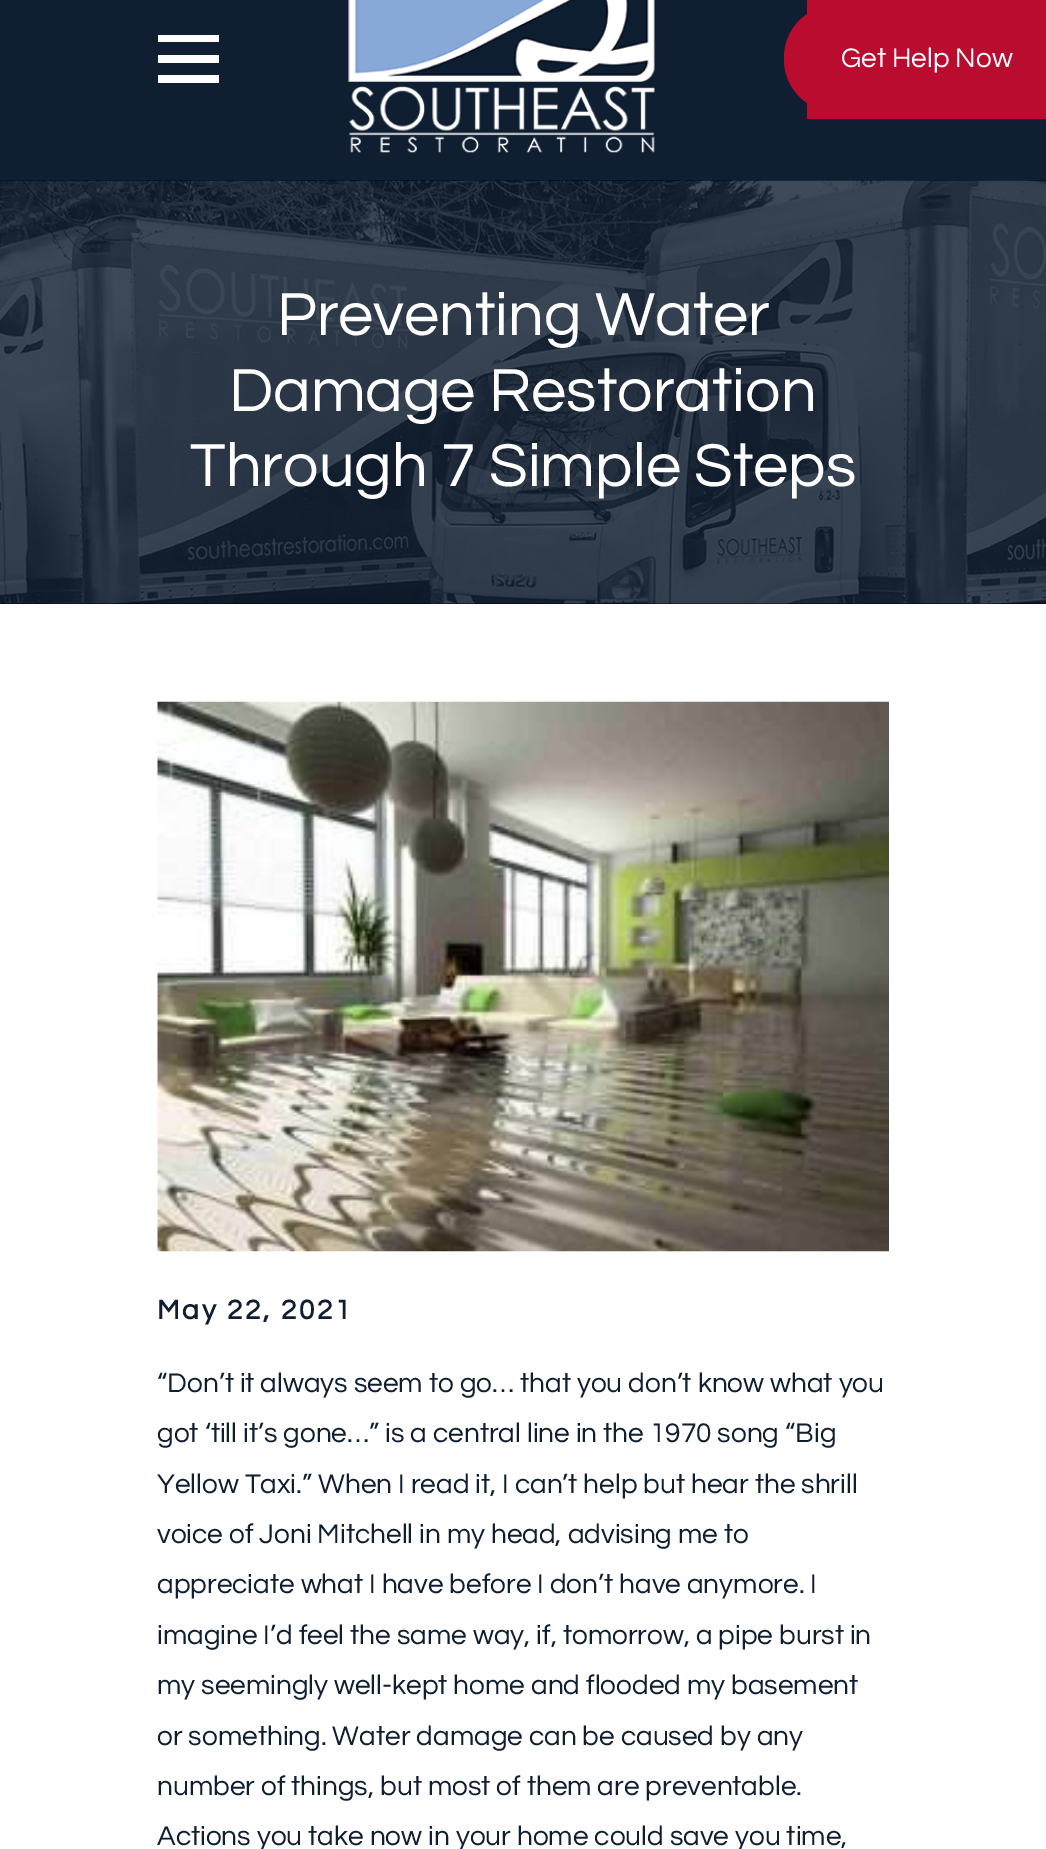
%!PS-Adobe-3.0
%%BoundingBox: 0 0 1046 1849
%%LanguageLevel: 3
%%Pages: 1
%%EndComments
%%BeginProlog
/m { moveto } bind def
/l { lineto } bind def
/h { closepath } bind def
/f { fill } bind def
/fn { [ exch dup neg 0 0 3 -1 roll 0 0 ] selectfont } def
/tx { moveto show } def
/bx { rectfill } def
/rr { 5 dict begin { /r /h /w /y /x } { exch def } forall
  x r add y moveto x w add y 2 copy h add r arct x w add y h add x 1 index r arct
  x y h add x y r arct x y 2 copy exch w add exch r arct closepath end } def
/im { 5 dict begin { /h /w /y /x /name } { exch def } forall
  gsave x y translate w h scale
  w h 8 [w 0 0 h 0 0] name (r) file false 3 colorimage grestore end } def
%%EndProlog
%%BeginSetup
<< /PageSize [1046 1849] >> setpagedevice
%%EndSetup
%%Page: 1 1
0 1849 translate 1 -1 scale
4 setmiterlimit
1 setgray
0 0 1046 1849 bx
0.059 0.118 0.192 setrgbcolor
0 0 1046 180 bx
1 setgray
158 35 m 158 42 l 219 42 l 219 35 l h 158 55 m 158 63 l 219 63 l 219 55 l h 158 75 m 158 83 l 219 83 l 219 75 l h f
(image0.raw) 348 0 307 153 im
0.729 0.047 0.184 setrgbcolor
784 5 105 107 52.5 rr f
807 0 239 119 bx
/Questrial-Regular 28 fn
1 setgray
(Get Help Now) 841 67 tx
0 setgray
0 180 1046 424 bx
(image1.raw) 0 180 1046 424 im
/Questrial-Regular 63 fn
1 setgray
(Preventing Water) 277 335 tx
(Damage Restoration) 229 411 tx
(Through 7 Simple Steps) 190 486 tx
(image2.raw) 157 701 732 551 im
/Questrial-Bold 28 fn
0.059 0.118 0.192 setrgbcolor
157 1319 m 2.75 0 (May 22, 2021) ashow
/Questrial-Regular 28 fn
(“Don’t it always seem to go… that you don’t know what you) 157 1392 tx
(got ‘till it’s gone…” is a central line in the 1970 song “Big) 157 1442 tx
(Yellow Taxi.” When I read it, I can’t help but hear the shrill) 157 1493 tx
(voice of Joni Mitchell in my head, advising me to) 157 1543 tx
(appreciate what I have before I don’t have anymore. I) 157 1593 tx
(imagine I’d feel the same way, if, tomorrow, a pipe burst in) 157 1644 tx
(my seemingly well-kept home and flooded my basement) 157 1694 tx
(or something. Water damage can be caused by any) 157 1745 tx
(number of things, but most of them are preventable.) 157 1795 tx
(Actions you take now in your home could save you time,) 157 1845 tx
showpage
%%EOF
